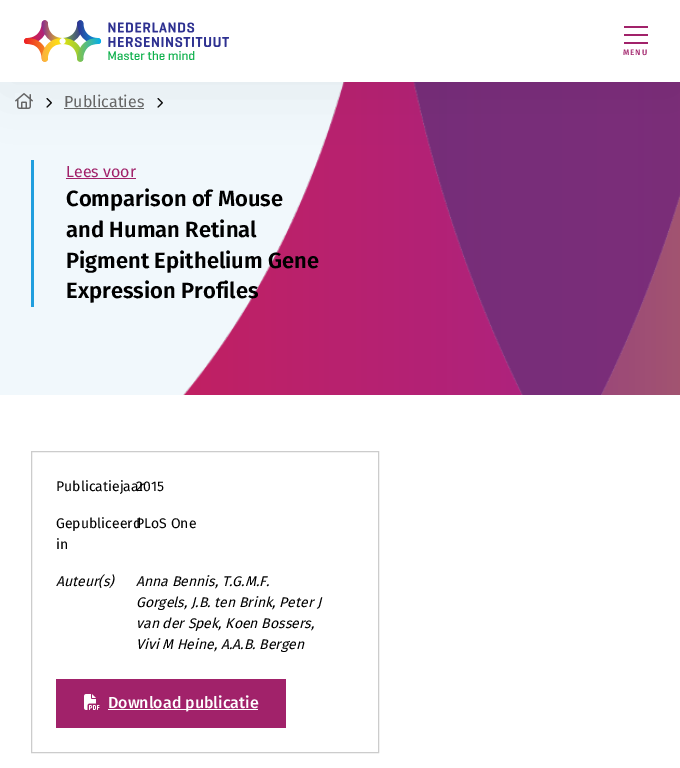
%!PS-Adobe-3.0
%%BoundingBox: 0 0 680 768
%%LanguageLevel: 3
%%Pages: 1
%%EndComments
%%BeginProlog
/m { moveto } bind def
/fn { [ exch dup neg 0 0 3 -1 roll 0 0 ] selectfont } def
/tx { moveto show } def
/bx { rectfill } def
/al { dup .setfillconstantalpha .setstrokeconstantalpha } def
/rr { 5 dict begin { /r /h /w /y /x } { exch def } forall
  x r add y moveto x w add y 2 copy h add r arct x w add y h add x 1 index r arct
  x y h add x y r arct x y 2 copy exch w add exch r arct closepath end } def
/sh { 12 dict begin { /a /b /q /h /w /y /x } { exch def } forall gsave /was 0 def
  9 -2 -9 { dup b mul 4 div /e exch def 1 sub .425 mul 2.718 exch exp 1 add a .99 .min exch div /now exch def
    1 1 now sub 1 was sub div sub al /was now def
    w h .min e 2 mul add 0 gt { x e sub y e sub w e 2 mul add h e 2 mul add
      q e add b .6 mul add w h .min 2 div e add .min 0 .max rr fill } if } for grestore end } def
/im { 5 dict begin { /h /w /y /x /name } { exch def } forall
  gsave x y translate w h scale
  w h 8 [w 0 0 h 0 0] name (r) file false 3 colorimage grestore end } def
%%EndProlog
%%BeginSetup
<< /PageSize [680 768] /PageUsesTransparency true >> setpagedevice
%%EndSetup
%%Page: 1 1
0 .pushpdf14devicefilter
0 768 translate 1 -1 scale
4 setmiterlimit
1 setgray
0 0 680 768 bx
0.945 0.973 0.988 setrgbcolor
0 82 680 313 bx
(image4.raw) 183 82 497 313 im
0.125 0.62 0.871 setrgbcolor
31 160 3 147 bx
0.631 0.133 0.416 setrgbcolor
66 178 70 1 bx
0 setgray
0 10 680 82 0 30 0.05 sh
1 setgray
0 0 680 82 bx
(image0.raw) 24 20 205 42 im
0.631 0.133 0.416 setrgbcolor
624 26 24 2 bx
624 34 24 2 bx
624 42 24 2 bx
/FiraSans-Medium 8 fn
623 55 m 1 0 (MENU) ashow
(image1.raw) 15 93 18 16 im
(image2.raw) 46 98 6 10 im
/FiraSans-Regular 16 fn
0.4 setgray
(Publicaties) 64 107 tx
64 108 80 1 bx
(image3.raw) 157 98 6 10 im
0.631 0.133 0.416 setrgbcolor
(Lees voor) 66 177 tx
/FiraSans-SemiBold 22 fn
0 setgray
(Comparison of Mouse) 66 206 tx
(and Human Retinal) 66 237 tx
(Pigment Epithelium Gene) 66 268 tx
(Expression Profiles) 66 298 tx
0.8 setgray
31.5 451.5 347 301 rectstroke
/FiraSans-Regular 14 fn
0 setgray
(Publicatiejaar) 56 491 tx
(2015) 136 491 tx
(Gepubliceerd) 56 528 tx
(in) 56 549 tx
(PLoS One) 136 528 tx
/FiraSans-Italic 14 fn
(Auteur\(s\)) 56 586 tx
(Anna Bennis, T.G.M.F.) 136 586 tx
(Gorgels, J.B. ten Brink, Peter J) 136 607 tx
(van der Spek, Koen Bossers,) 136 628 tx
(Vivi M Heine, A.A.B. Bergen) 136 649 tx
0.631 0.133 0.416 setrgbcolor
56 679 230 49 bx
(image5.raw) 84 694 16 16 im
1 setgray
108 709 150 1 bx
/FiraSans-Medium 16 fn
(Download publicatie) 108 708 tx
.poppdf14devicefilter showpage
%%EOF
